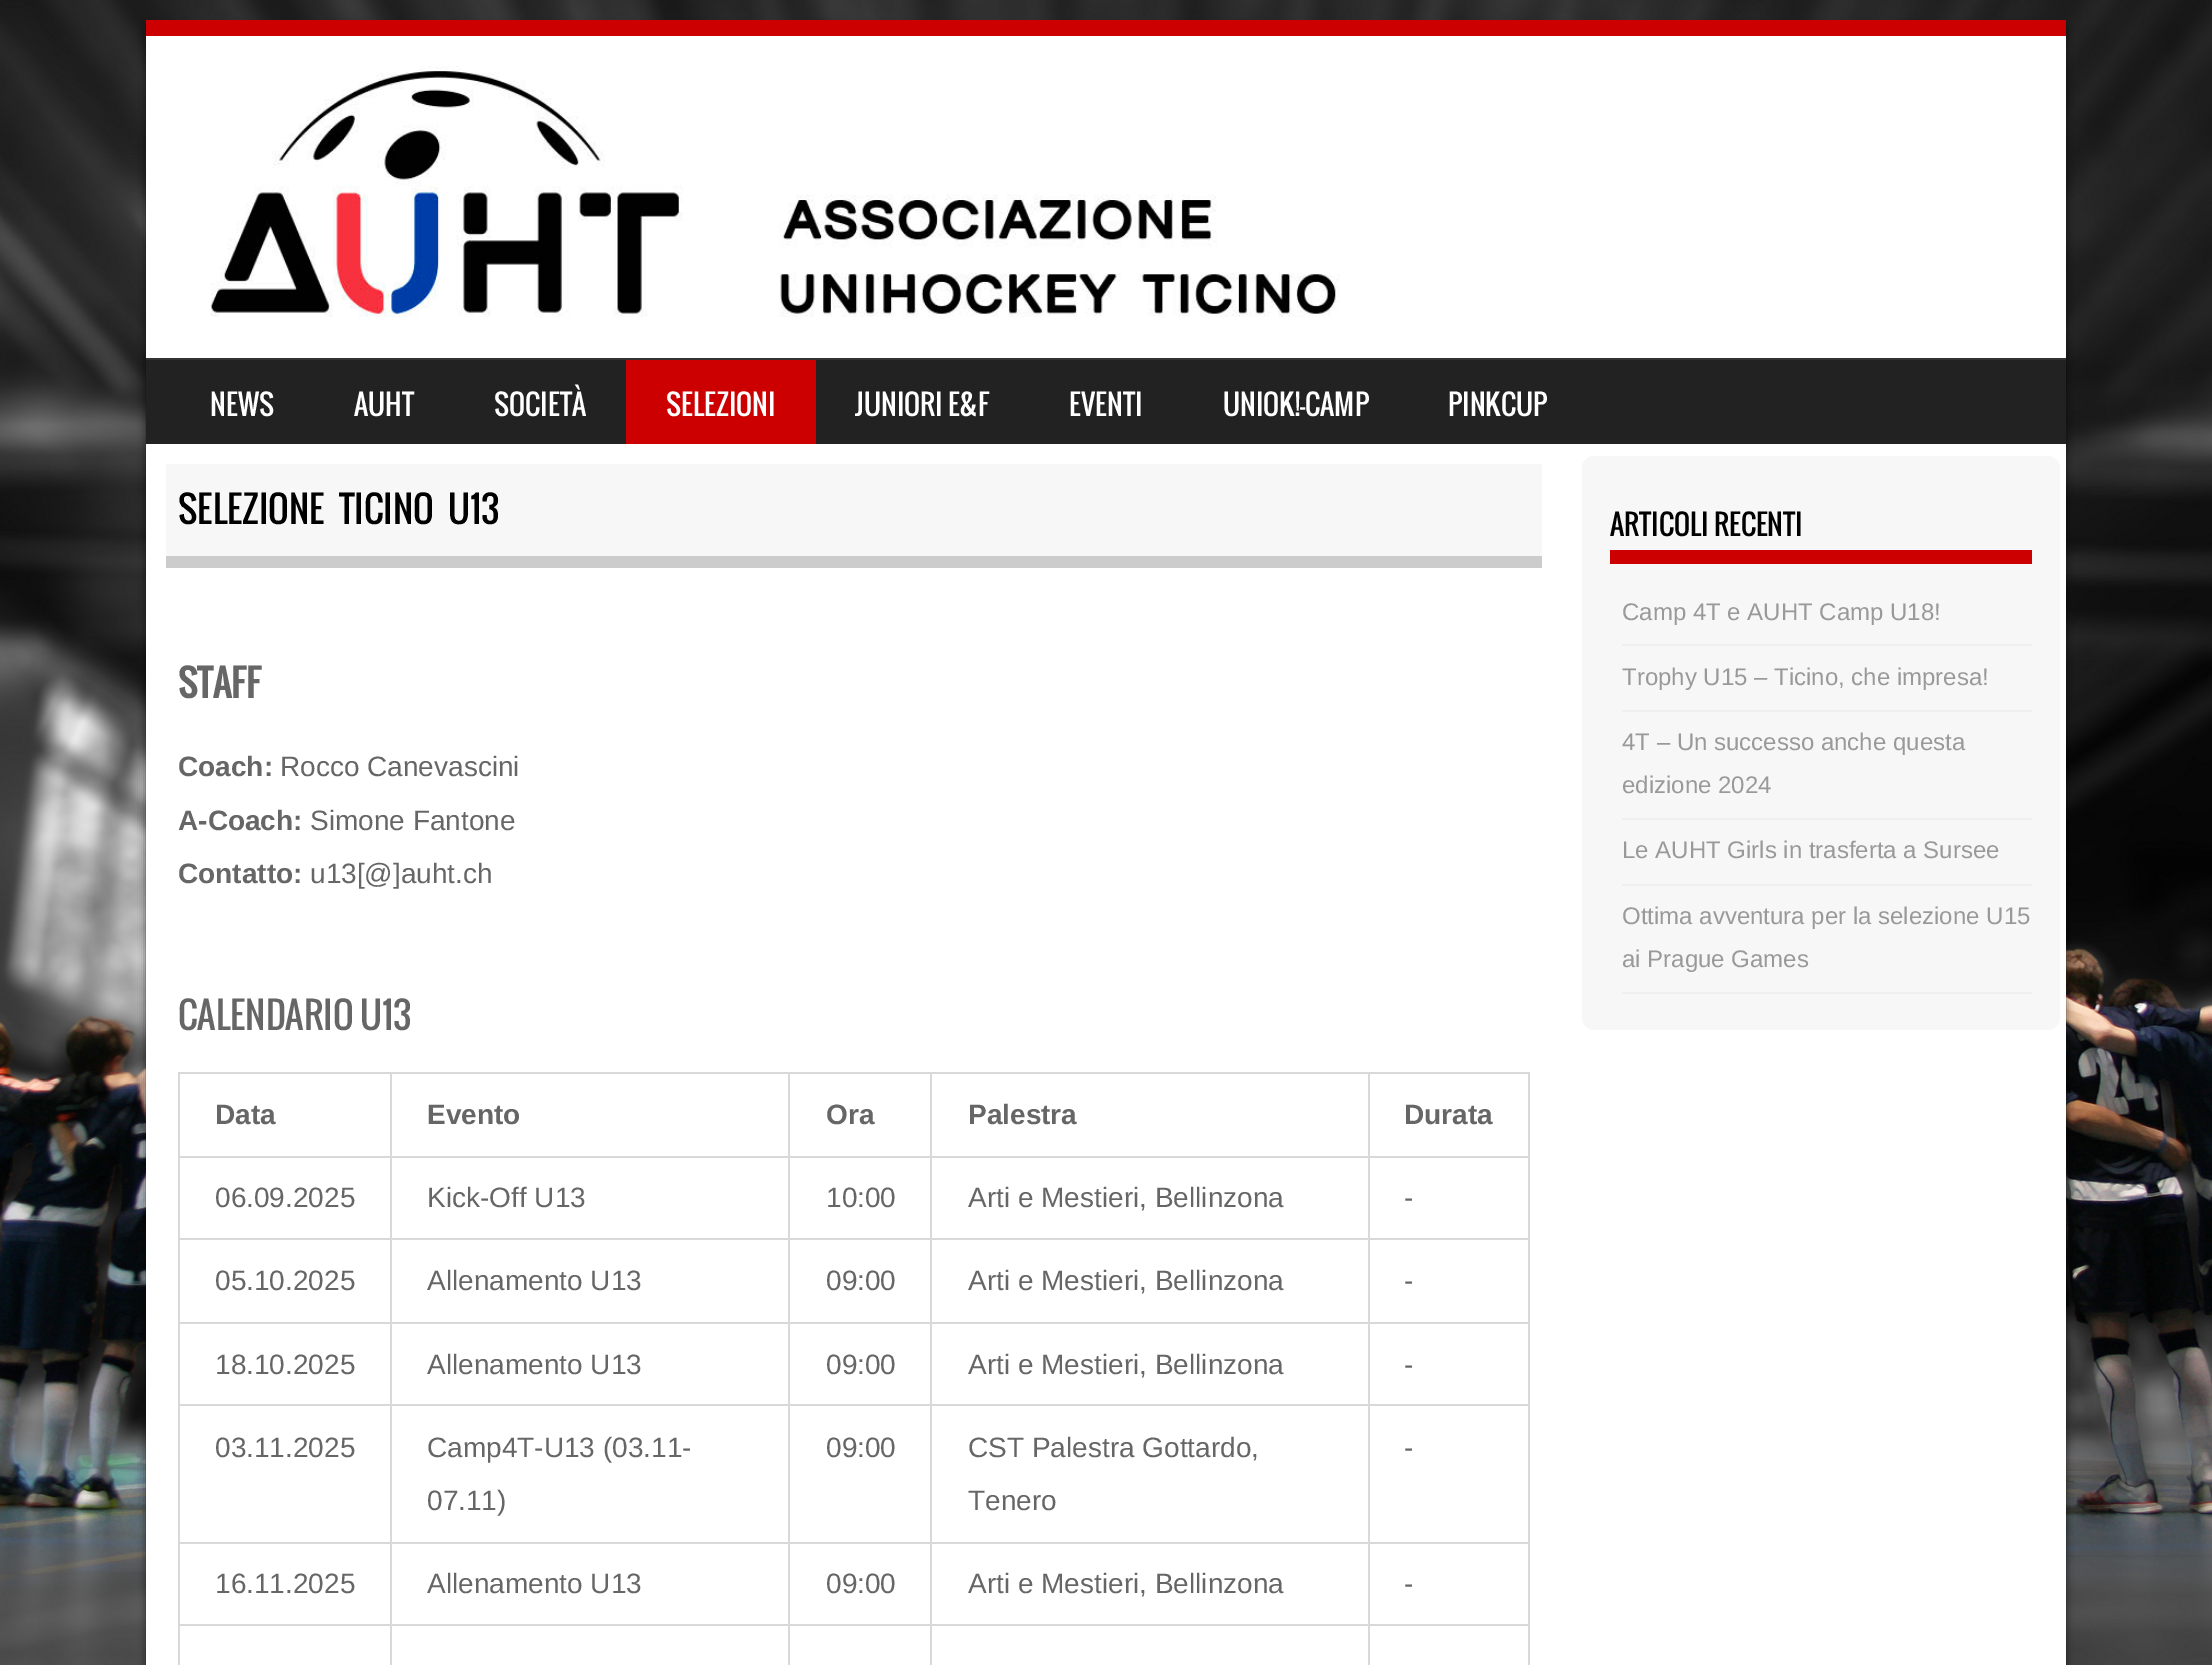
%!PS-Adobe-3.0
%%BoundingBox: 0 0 2212 1665
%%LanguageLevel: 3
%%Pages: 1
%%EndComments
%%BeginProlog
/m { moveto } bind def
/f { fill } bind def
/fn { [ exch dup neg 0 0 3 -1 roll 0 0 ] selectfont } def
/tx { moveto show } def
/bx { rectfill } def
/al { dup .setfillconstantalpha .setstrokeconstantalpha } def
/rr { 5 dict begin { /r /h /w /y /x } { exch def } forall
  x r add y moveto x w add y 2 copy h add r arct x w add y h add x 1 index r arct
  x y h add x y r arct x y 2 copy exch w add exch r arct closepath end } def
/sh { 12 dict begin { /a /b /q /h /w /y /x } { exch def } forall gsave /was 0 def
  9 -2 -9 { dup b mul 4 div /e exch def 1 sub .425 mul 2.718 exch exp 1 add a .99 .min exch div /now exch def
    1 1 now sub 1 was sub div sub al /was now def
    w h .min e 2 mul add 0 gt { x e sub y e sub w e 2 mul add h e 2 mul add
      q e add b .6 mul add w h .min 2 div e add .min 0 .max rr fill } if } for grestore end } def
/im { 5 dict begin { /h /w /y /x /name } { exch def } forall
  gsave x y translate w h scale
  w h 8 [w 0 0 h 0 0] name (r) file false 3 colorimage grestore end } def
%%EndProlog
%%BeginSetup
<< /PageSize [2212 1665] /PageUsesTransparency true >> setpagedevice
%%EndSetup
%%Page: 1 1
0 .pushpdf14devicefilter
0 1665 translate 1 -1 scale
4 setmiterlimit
1 setgray
0 0 2212 1665 bx
(image0.raw) 0 0 2212 1665 im
0 setgray
146 28 1920 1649 0 4 0.6 sh
0.8 0 0 setrgbcolor
146 20 1920 16 bx
1 setgray
146 36 1920 322 bx
(image1.raw) 210 66 1130 251 im
0.133 setgray
146 360 1920 84 bx
0.2 setgray
146 358 1920 2 bx
/Oswald-Regular 28 fn
1 setgray
(NEWS) 210 416 tx
(AUHT) 354 416 tx
(SOCIETÀ) 494 416 tx
0.8 0 0 setrgbcolor
626 360 190 84 bx
1 setgray
(SELEZIONI) 666 416 tx
(JUNIORI E&F) 855 416 tx
(EVENTI) 1069 416 tx
(UNIOK!-CAMP) 1223 416 tx
(PINKCUP) 1448 416 tx
146 444 1920 1221 bx
0.969 setgray
166 464 1376 92 bx
0.8 setgray
166 556 1376 12 bx
/Oswald-Regular 36 fn
0 setgray
178 524 m 8 0 32 (SELEZIONE TICINO U13) widthshow
/Oswald-Bold 36 fn
0.4 setgray
(STAFF) 178 698 tx
/LiberationSans-Bold 28 fn
(Coach:) 178 776 tx
/LiberationSans-Regular 28 fn
(Rocco Canevascini) 280 776 tx
/LiberationSans-Bold 28 fn
(A-Coach:) 178 830 tx
/LiberationSans-Regular 28 fn
(Simone Fantone) 310 830 tx
/LiberationSans-Bold 28 fn
(Contatto:) 178 883 tx
/LiberationSans-Regular 28 fn
(u13[@]auht.ch) 310 883 tx
/Oswald-Regular 36 fn
(CALENDARIO U13) 178 1030 tx
0.851 setgray
178 1072 1352 2 bx
1528 1072 2 593 bx
178 1074 2 82 bx
/LiberationSans-Bold 28 fn
0.4 setgray
(Data) 215 1124 tx
0.851 setgray
390 1074 2 82 bx
0.4 setgray
(Evento) 427 1124 tx
0.851 setgray
788 1074 2 82 bx
0.4 setgray
(Ora) 826 1124 tx
0.851 setgray
930 1074 2 82 bx
0.4 setgray
(Palestra) 968 1124 tx
0.851 setgray
1368 1074 2 82 bx
0.4 setgray
(Durata) 1404 1124 tx
0.851 setgray
178 1156 1350 2 bx
178 1156 2 82 bx
/LiberationSans-Regular 28 fn
0.4 setgray
(06.09.2025) 215 1207 tx
0.851 setgray
390 1156 2 82 bx
0.4 setgray
(Kick-Off U13) 427 1207 tx
0.851 setgray
788 1156 2 82 bx
0.4 setgray
(10:00) 826 1207 tx
0.851 setgray
930 1156 2 82 bx
0.4 setgray
(Arti e Mestieri, Bellinzona) 968 1207 tx
0.851 setgray
1368 1156 2 82 bx
0.4 setgray
(-) 1404 1207 tx
0.851 setgray
178 1238 1350 2 bx
178 1238 2 84 bx
0.4 setgray
(05.10.2025) 215 1290 tx
0.851 setgray
390 1238 2 84 bx
0.4 setgray
(Allenamento U13) 427 1290 tx
0.851 setgray
788 1238 2 84 bx
0.4 setgray
(09:00) 826 1290 tx
0.851 setgray
930 1238 2 84 bx
0.4 setgray
(Arti e Mestieri, Bellinzona) 968 1290 tx
0.851 setgray
1368 1238 2 84 bx
0.4 setgray
(-) 1404 1290 tx
0.851 setgray
178 1322 1350 2 bx
178 1322 2 82 bx
0.4 setgray
(18.10.2025) 215 1374 tx
0.851 setgray
390 1322 2 82 bx
0.4 setgray
(Allenamento U13) 427 1374 tx
0.851 setgray
788 1322 2 82 bx
0.4 setgray
(09:00) 826 1374 tx
0.851 setgray
930 1322 2 82 bx
0.4 setgray
(Arti e Mestieri, Bellinzona) 968 1374 tx
0.851 setgray
1368 1322 2 82 bx
0.4 setgray
(-) 1404 1374 tx
0.851 setgray
178 1404 1350 2 bx
178 1404 2 138 bx
0.4 setgray
(03.11.2025) 215 1457 tx
0.851 setgray
390 1404 2 138 bx
0.4 setgray
(Camp4T-U13 \(03.11-) 427 1457 tx
(07.11\)) 427 1510 tx
0.851 setgray
788 1404 2 138 bx
0.4 setgray
(09:00) 826 1457 tx
0.851 setgray
930 1404 2 138 bx
0.4 setgray
(CST Palestra Gottardo,) 968 1457 tx
(Tenero) 968 1510 tx
0.851 setgray
1368 1404 2 138 bx
0.4 setgray
(-) 1404 1457 tx
0.851 setgray
178 1542 1350 2 bx
178 1542 2 82 bx
0.4 setgray
(16.11.2025) 215 1593 tx
0.851 setgray
390 1542 2 82 bx
0.4 setgray
(Allenamento U13) 427 1593 tx
0.851 setgray
788 1542 2 82 bx
0.4 setgray
(09:00) 826 1593 tx
0.851 setgray
930 1542 2 82 bx
0.4 setgray
(Arti e Mestieri, Bellinzona) 968 1593 tx
0.851 setgray
1368 1542 2 82 bx
0.4 setgray
(-) 1404 1593 tx
0.851 setgray
178 1624 1350 2 bx
178 1624 2 41 bx
390 1624 2 41 bx
788 1624 2 41 bx
930 1624 2 41 bx
1368 1624 2 41 bx
0.969 setgray
1582 456 478 574 12 rr f
0.8 0 0 setrgbcolor
1610 550 422 14 bx
/Oswald-Regular 28 fn
0 setgray
(ARTICOLI RECENTI) 1610 536 tx
0.937 setgray
1622 644 410 2 bx
/LiberationSans-Regular 24 fn
0.6 setgray
(Camp 4T e AUHT Camp U18!) 1622 620 tx
0.937 setgray
1622 710 410 2 bx
0.6 setgray
(Trophy U15 – Ticino, che impresa!) 1622 685 tx
0.937 setgray
1622 818 410 2 bx
0.6 setgray
(4T – Un successo anche questa) 1622 750 tx
(edizione 2024) 1622 793 tx
0.937 setgray
1622 884 410 2 bx
0.6 setgray
(Le AUHT Girls in trasferta a Sursee) 1622 858 tx
0.937 setgray
1622 992 410 2 bx
0.6 setgray
(Ottima avventura per la selezione U15) 1622 924 tx
(ai Prague Games) 1622 967 tx
.poppdf14devicefilter showpage
%%EOF
